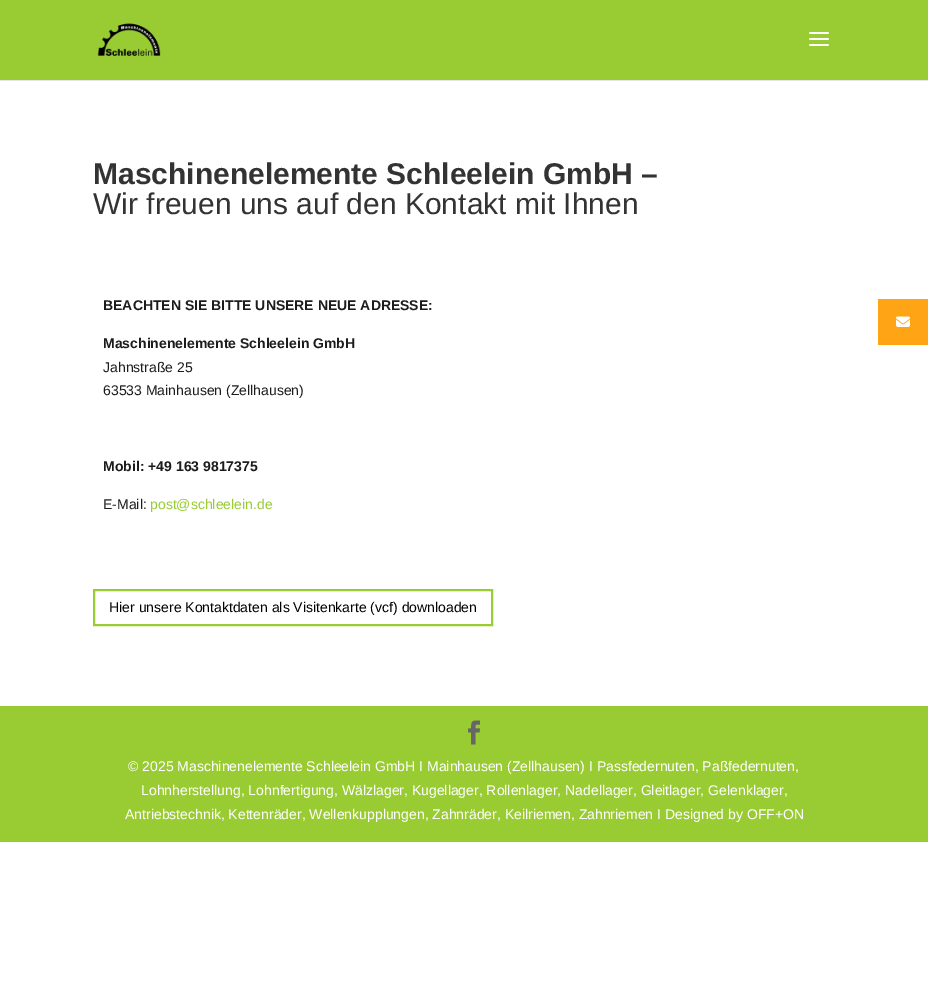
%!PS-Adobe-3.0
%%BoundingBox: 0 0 928 995
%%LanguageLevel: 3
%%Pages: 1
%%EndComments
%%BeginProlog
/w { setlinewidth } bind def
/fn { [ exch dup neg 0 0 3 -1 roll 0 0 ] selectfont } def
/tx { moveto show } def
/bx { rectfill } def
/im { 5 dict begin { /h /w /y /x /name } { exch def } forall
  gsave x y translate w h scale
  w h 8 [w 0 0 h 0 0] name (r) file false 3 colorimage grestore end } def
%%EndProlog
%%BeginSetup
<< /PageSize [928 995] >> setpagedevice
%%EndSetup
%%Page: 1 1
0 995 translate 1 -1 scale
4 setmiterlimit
1 setgray
0 0 928 995 bx
0.902 setgray
0 80 928 1 bx
0.6 0.8 0.2 setrgbcolor
0 0 928 80 bx
(image0.raw) 97 23 64 33 im
(image1.raw) 809 32 20 14 im
/LiberationSans-Bold 30 fn
0.2 setgray
(Maschinenelemente Schleelein GmbH –) 93 184 tx
/LiberationSans-Regular 30 fn
(Wir freuen uns auf den Kontakt mit Ihnen) 93 214 tx
/LiberationSans-Bold 14 fn
0.11 setgray
(BEACHTEN SIE BITTE UNSERE NEUE ADRESSE:) 103 310 tx
(Maschinenelemente Schleelein GmbH) 103 348 tx
/LiberationSans-Regular 14 fn
(Jahnstraße 25) 103 372 tx
(63533 Mainhausen \(Zellhausen\)) 103 395 tx
/LiberationSans-Bold 14 fn
(Mobil: +49 163 9817375) 103 471 tx
/LiberationSans-Regular 14 fn
(E-Mail:) 103 509 tx
0.6 0.8 0.2 setrgbcolor
(post@schleelein.de) 150 509 tx
2 w
94 590 398 35 rectstroke
0 setgray
(Hier unsere Kontaktdaten als Visitenkarte \(vcf\) downloaden) 109 612 tx
0.6 0.8 0.2 setrgbcolor
0 706 928 136 bx
(image2.raw) 468 720 12 25 im
1 setgray
(© 2025 Maschinenelemente Schleelein GmbH I Mainhausen \(Zellhausen\) I Passfedernuten, Paßfedernuten,) 128 771 tx
(Lohnherstellung, Lohnfertigung, Wälzlager, Kugellager, Rollenlager, Nadellager, Gleitlager, Gelenklager,) 141 795 tx
(Antriebstechnik, Kettenräder, Wellenkupplungen, Zahnräder, Keilriemen, Zahnriemen I Designed by OFF+ON) 125 819 tx
0.996 0.643 0.082 setrgbcolor
878 299 50 46 bx
(image3.raw) 896 316 14 11 im
showpage
%%EOF
